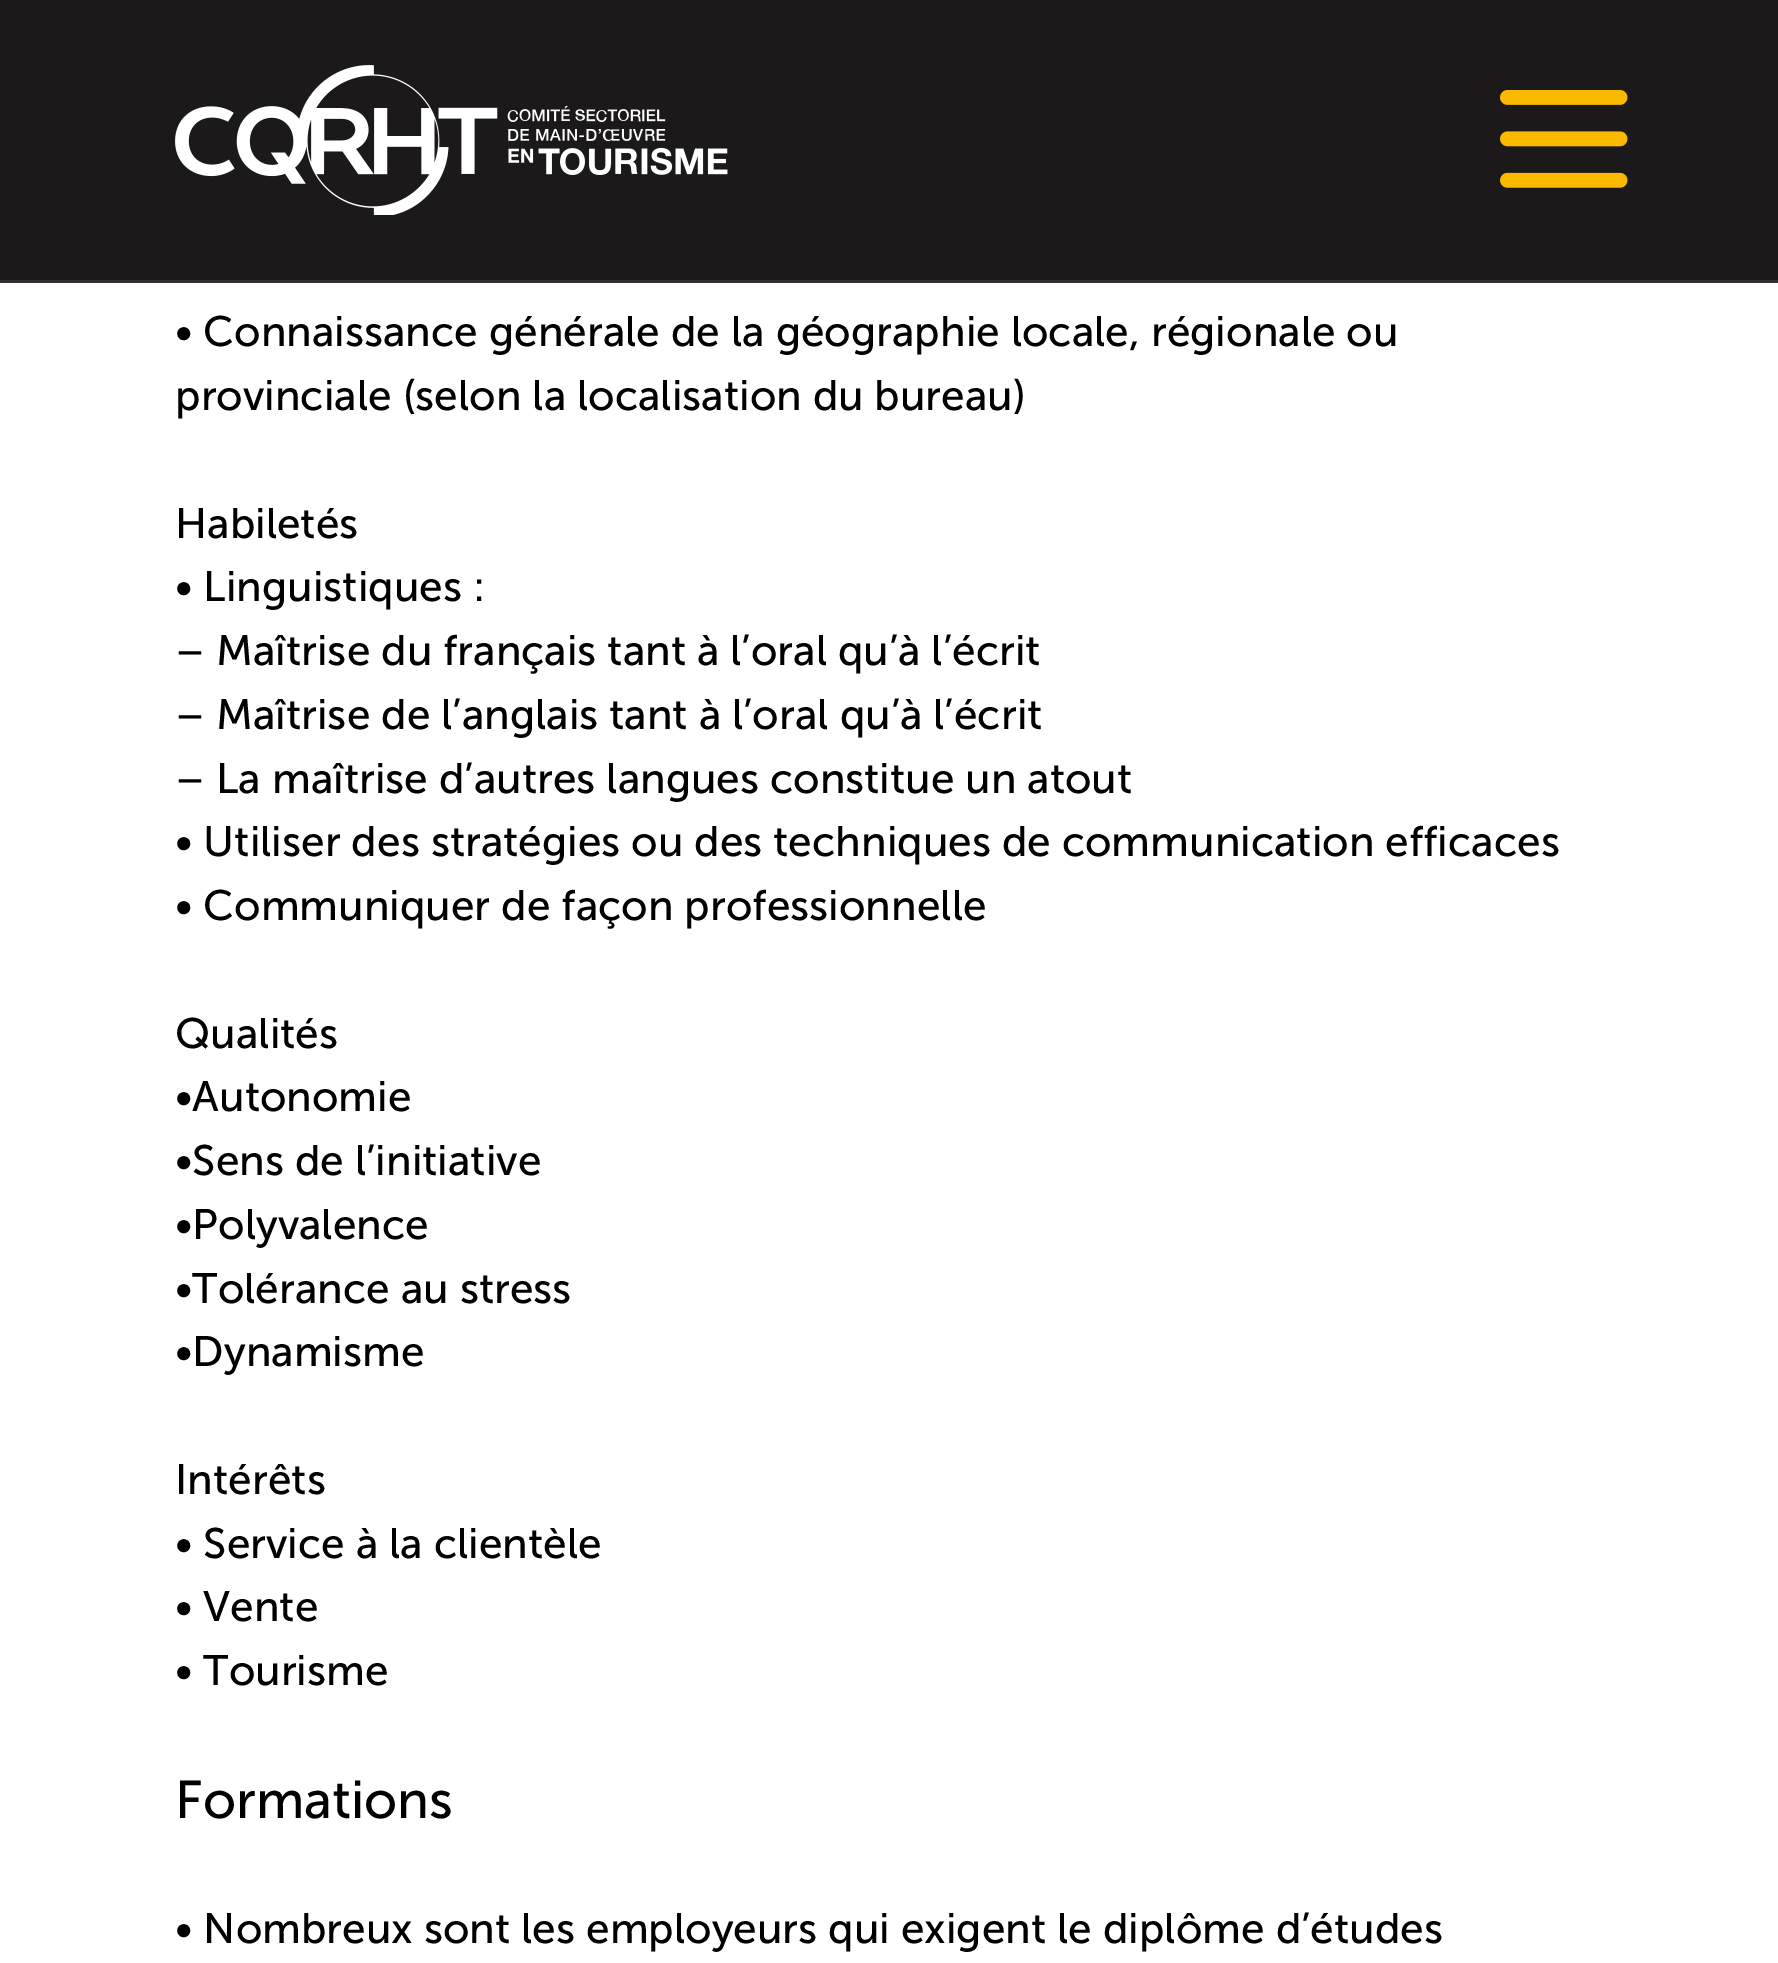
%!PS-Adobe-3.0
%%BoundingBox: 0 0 1778 1963
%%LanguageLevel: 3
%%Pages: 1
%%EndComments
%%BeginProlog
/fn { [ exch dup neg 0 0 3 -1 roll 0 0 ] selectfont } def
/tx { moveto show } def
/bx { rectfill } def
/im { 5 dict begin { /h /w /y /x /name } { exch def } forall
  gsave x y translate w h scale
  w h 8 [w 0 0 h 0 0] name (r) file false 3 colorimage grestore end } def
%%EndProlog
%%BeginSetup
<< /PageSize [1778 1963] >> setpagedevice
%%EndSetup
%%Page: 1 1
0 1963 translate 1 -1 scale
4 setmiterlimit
1 setgray
0 0 1778 1963 bx
0.11 0.098 0.102 setrgbcolor
0 0 1778 280 bx
0.196 0.188 0.188 setrgbcolor
0 280 1778 3 bx
(image0.raw) 175 65 553 150 im
(image1.raw) 1500 90 128 98 im
/MuseoSans-Regular 42.5 fn
0 setgray
(• Connaissance générale de la géographie locale, régionale ou) 175 346 tx
(provinciale \(selon la localisation du bureau\)) 175 410 tx
(Habiletés) 175 538 tx
(• Linguistiques :) 175 601 tx
(– Maîtrise du français tant à l’oral qu’à l’écrit) 175 665 tx
(– Maîtrise de l’anglais tant à l’oral qu’à l’écrit) 175 729 tx
(– La maîtrise d’autres langues constitue un atout) 175 793 tx
(• Utiliser des stratégies ou des techniques de communication efficaces) 175 856 tx
(• Communiquer de façon professionnelle) 175 920 tx
(Qualités) 175 1048 tx
(•Autonomie) 175 1111 tx
(•Sens de l’initiative) 175 1175 tx
(•Polyvalence) 175 1239 tx
(•Tolérance au stress) 175 1303 tx
(•Dynamisme) 175 1366 tx
(Intérêts) 175 1494 tx
(• Service à la clientèle) 175 1558 tx
(• Vente) 175 1621 tx
(• Tourisme) 175 1685 tx
/MuseoSans-Regular 53 fn
(Formations) 175 1818 tx
/MuseoSans-Regular 42.5 fn
(• Nombreux sont les employeurs qui exigent le diplôme d’études) 175 1943 tx
showpage
%%EOF
